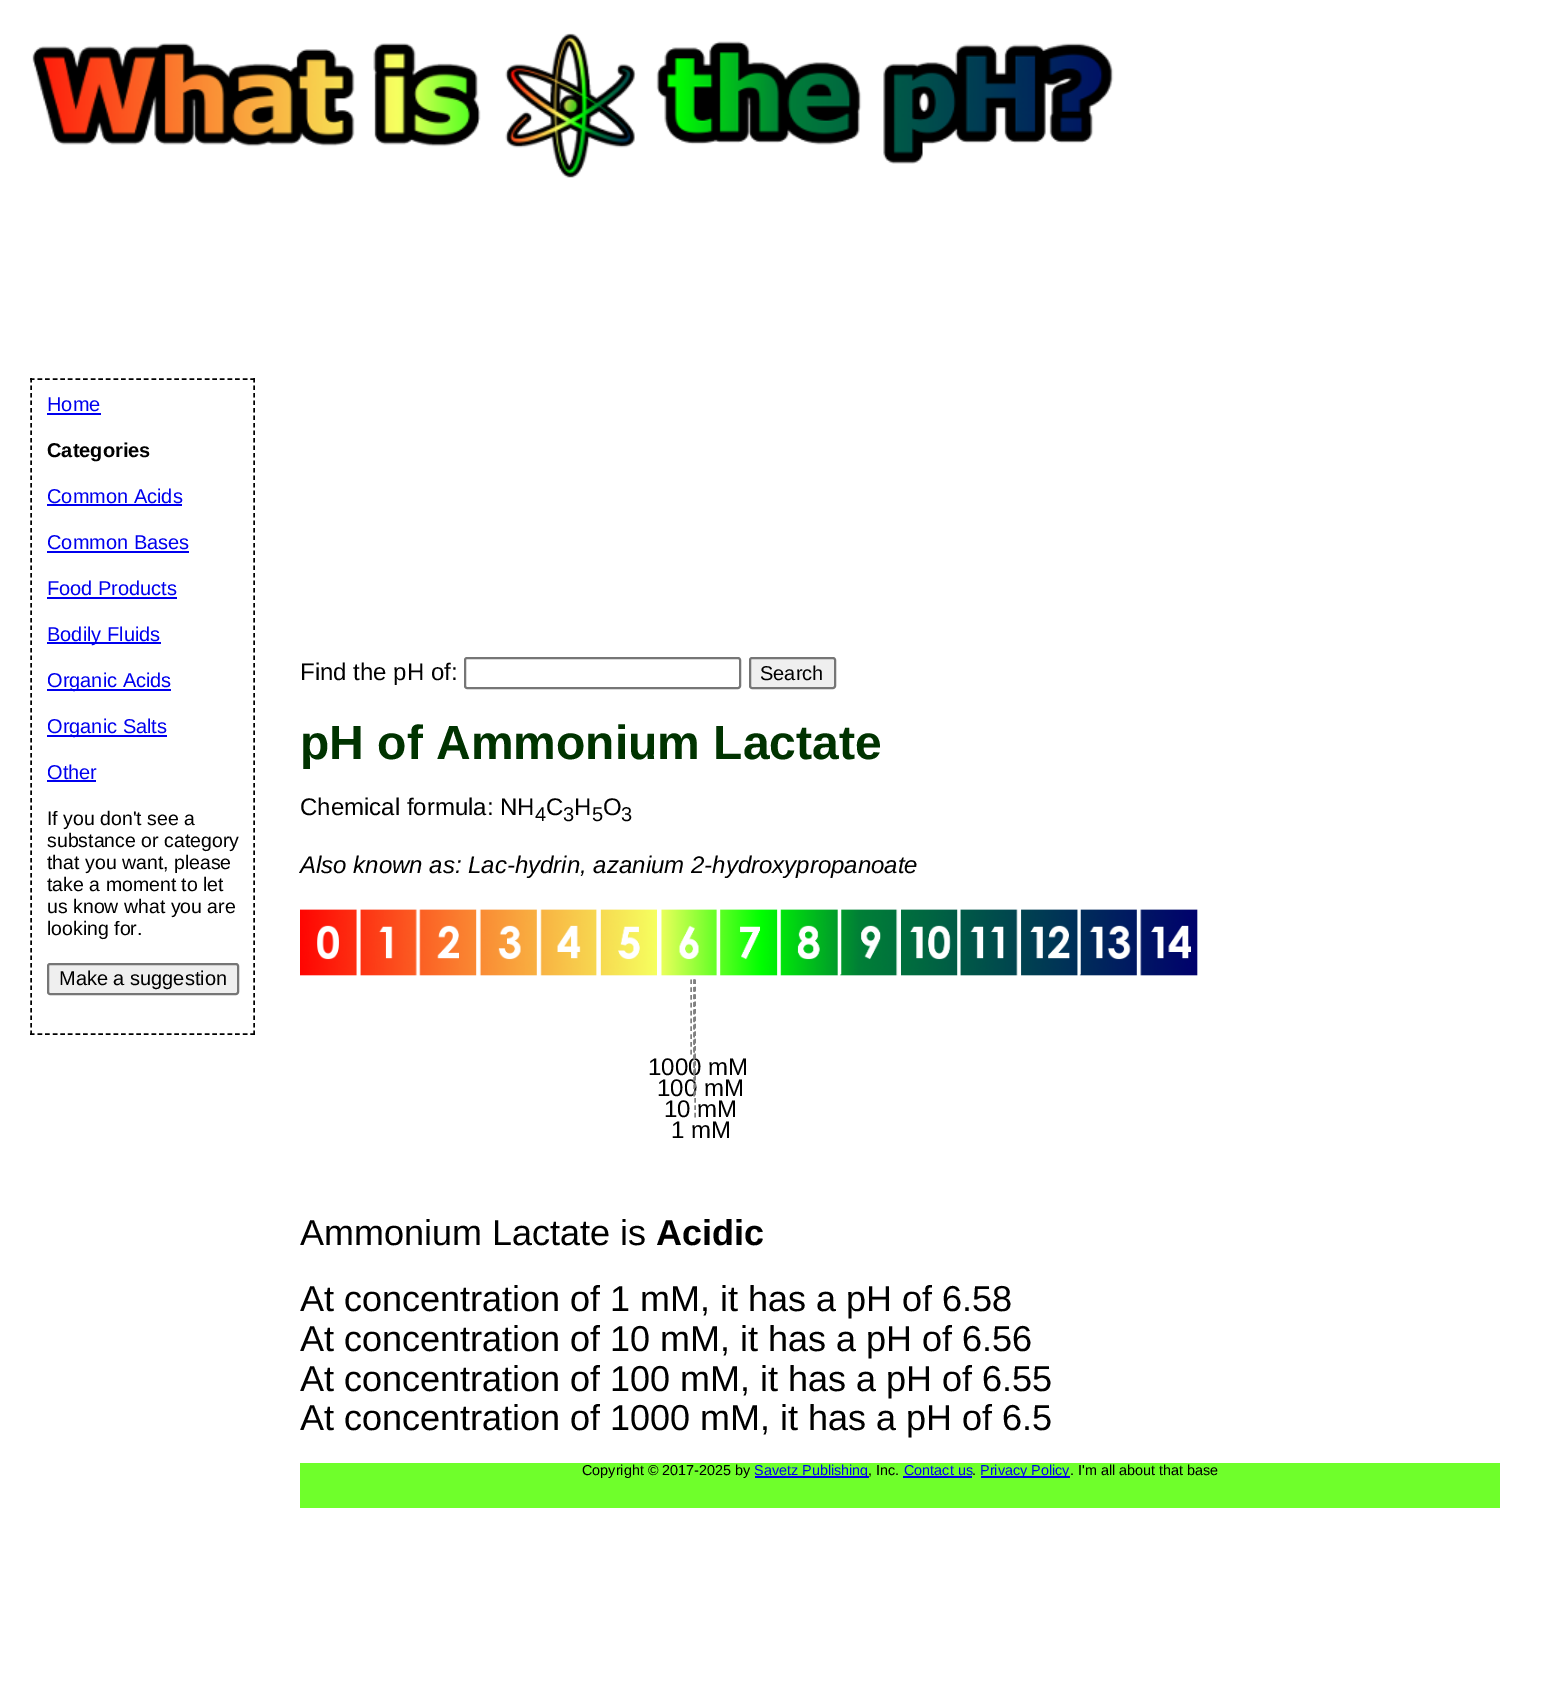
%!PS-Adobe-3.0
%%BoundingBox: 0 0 1548 1700
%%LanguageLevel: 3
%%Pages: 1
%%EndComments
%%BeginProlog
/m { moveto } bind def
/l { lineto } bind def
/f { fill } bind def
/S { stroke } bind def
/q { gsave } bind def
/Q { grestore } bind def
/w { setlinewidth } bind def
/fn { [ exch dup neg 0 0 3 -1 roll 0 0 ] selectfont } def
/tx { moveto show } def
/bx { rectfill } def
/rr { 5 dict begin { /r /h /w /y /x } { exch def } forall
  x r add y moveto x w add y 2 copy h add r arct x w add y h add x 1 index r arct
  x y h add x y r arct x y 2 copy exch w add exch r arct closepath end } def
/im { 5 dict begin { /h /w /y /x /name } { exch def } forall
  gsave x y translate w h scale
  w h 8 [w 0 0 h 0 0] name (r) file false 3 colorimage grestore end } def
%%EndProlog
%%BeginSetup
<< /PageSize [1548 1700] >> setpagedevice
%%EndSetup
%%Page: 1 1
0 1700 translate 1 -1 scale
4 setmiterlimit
1 setgray
0 0 1548 1700 bx
(image0.raw) 32 33 1082 145 im
0 setgray
1.5 w
[4.5 3.1] 0 setdash
30 379 m 255 379 l S
[4.5 3] 0 setdash
254 378 m 254 1035 l S
[4.5 3.1] 0 setdash
30 1034 m 255 1034 l S
[4.5 3] 0 setdash
31 378 m 31 1035 l S
/LiberationSans-Regular 20 fn
0 0 0.933 setrgbcolor
(Home) 47 411 tx
47 413 54 2 bx
/LiberationSans-Bold 20 fn
0 setgray
(Categories) 47 457 tx
/LiberationSans-Regular 20 fn
0 0 0.933 setrgbcolor
(Common Acids) 47 503 tx
47 504 135 2 bx
(Common Bases) 47 549 tx
47 551 142 2 bx
(Food Products) 47 595 tx
47 597 130 2 bx
47 642 114 2 bx
(Bodily Fluids) 47 641 tx
47 689 124 2 bx
(Organic Acids) 47 687 tx
47 735 120 2 bx
(Organic Salts) 47 733 tx
(Other) 47 779 tx
47 780 49 2 bx
/LiberationSans-Regular 19.5 fn
0 setgray
(If you don't see a) 47 825 tx
(substance or category) 47 847 tx
(that you want, please) 47 869 tx
(take a moment to let) 47 891 tx
(us know what you are) 47 913 tx
(looking for.) 47 935 tx
0.937 setgray
48 964 190 30 2 rr q f Q
0.463 setgray
2 w
[] 0 setdash
S
/LiberationSans-Regular 20 fn
0 setgray
(Make a suggestion) 59 985 tx
/LiberationSans-Regular 24 fn
(Find the pH of:) 300 680 tx
0.463 setgray
465 658 275 30 2 rr S
0.937 setgray
750 658 85 30 2 rr q f Q
0.463 setgray
S
/LiberationSans-Regular 20 fn
0 setgray
(Search) 760 680 tx
/LiberationSans-Bold 48 fn
0 0.2 0 setrgbcolor
(pH of Ammonium Lactate) 300 759 tx
/LiberationSans-Regular 24 fn
0 setgray
(Chemical formula: NH) 300 815 tx
/LiberationSans-Regular 20 fn
(4) 535 821 tx
/LiberationSans-Regular 24 fn
(C) 546 815 tx
/LiberationSans-Regular 20 fn
(3) 563 821 tx
/LiberationSans-Regular 24 fn
(H) 574 815 tx
/LiberationSans-Regular 20 fn
(5) 592 821 tx
/LiberationSans-Regular 24 fn
(O) 603 815 tx
/LiberationSans-Regular 20 fn
(3) 621 821 tx
/LiberationSans-Italic 24 fn
(Also known as: Lac-hydrin, azanium 2-hydroxypropanoate) 300 873 tx
(image1.raw) 300 909 898 67 im
0.502 setgray
1.5 w
[4.5 3.33] 0 setdash
691 979.5 m 691 1054.5 l S
/LiberationSans-Regular 24 fn
0 setgray
(1000 mM) 648 1075 tx
0.502 setgray
[4.5 3.12] 0 setdash
694 979.5 m 694 1075.5 l S
0 setgray
(100 mM) 657 1096 tx
0.502 setgray
[4.5 3] 0 setdash
694 979.5 m 694 1096.5 l S
0 setgray
(10 mM) 664 1117 tx
0.502 setgray
[4.5 2.91] 0 setdash
695 979.5 m 695 1117.5 l S
0 setgray
(1 mM) 671 1138 tx
/LiberationSans-Regular 36 fn
(Ammonium Lactate is) 300 1245 tx
/LiberationSans-Bold 36 fn
(Acidic) 656 1245 tx
/LiberationSans-Regular 36 fn
(At concentration of 1 mM, it has a pH of 6.58) 300 1311 tx
(At concentration of 10 mM, it has a pH of 6.56) 300 1351 tx
(At concentration of 100 mM, it has a pH of 6.55) 300 1391 tx
(At concentration of 1000 mM, it has a pH of 6.5) 300 1430 tx
0.435 1 0.169 setrgbcolor
300 1463 1200 45 bx
/LiberationSans-Regular 14.4 fn
0 setgray
(Copyright © 2017-2025 by) 582 1475 tx
0 0 0.933 setrgbcolor
755 1476 114 2 bx
(Savetz Publishing) 754 1475 tx
0 setgray
(, Inc.) 868 1475 tx
0 0 0.933 setrgbcolor
(Contact us) 904 1475 tx
903 1476 69 2 bx
0 setgray
(.) 972 1475 tx
0 0 0.933 setrgbcolor
981 1476 89 2 bx
(Privacy Policy) 980 1475 tx
0 setgray
(. I'm all about that base) 1070 1475 tx
showpage
%%EOF
